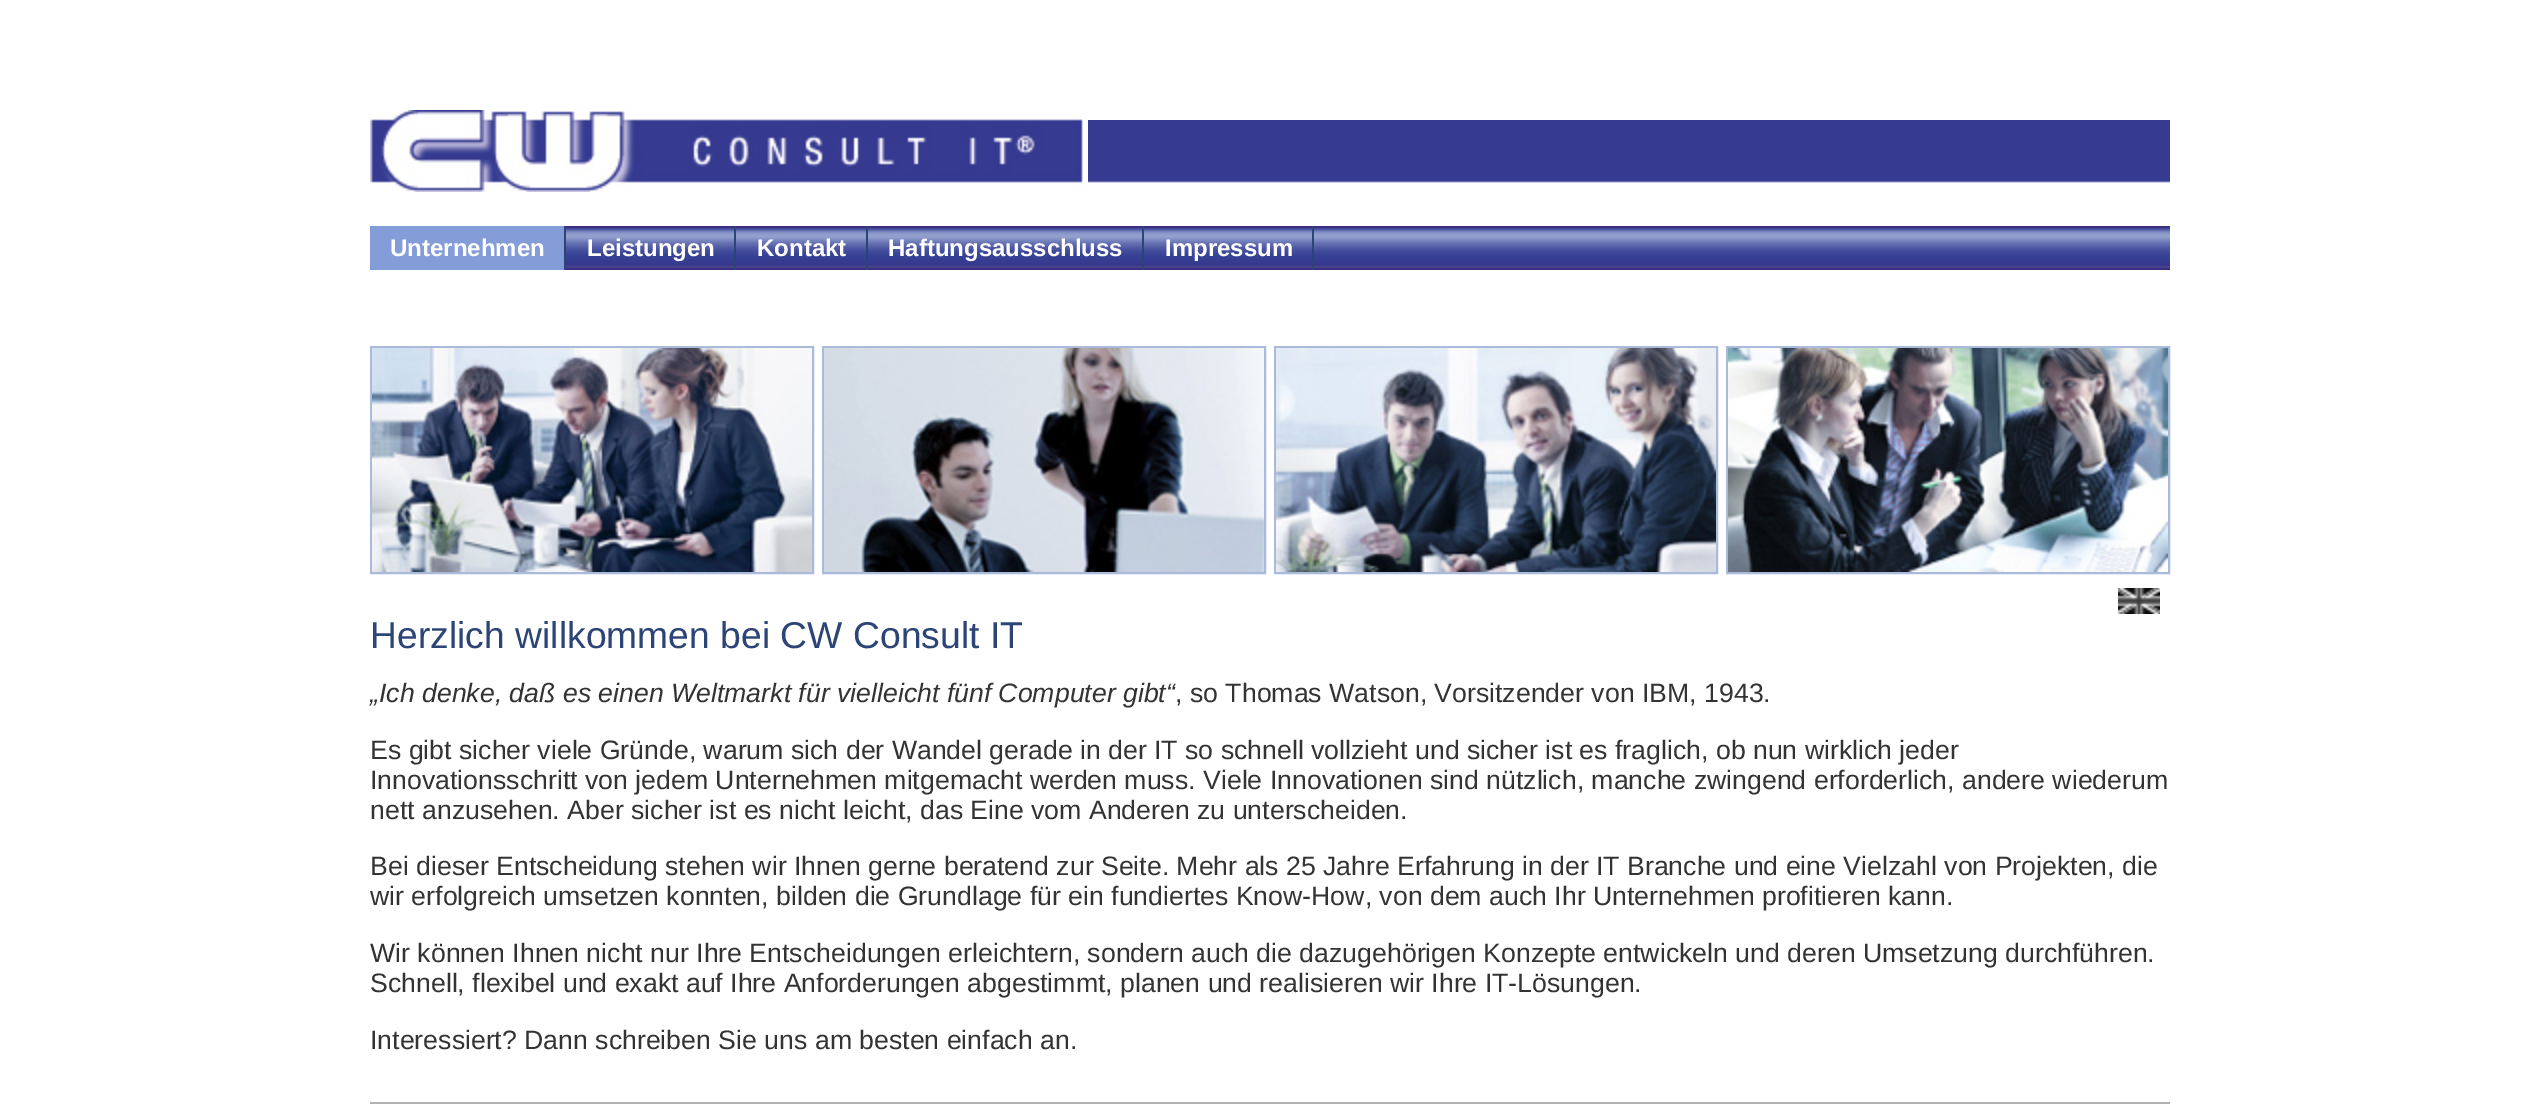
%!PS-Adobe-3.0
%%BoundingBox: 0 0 2540 1109
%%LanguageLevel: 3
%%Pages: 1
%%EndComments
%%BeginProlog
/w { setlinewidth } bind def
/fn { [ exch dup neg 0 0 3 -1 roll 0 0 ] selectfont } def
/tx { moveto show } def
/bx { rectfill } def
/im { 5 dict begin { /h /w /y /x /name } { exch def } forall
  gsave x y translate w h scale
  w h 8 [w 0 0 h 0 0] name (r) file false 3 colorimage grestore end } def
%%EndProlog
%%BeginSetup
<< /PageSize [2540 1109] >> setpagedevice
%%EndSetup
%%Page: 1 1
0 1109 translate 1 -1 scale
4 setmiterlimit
1 setgray
0 0 2540 1109 bx
(image0.raw) 1088 120 1082 63 im
(image1.raw) 370 110 718 82 im
(image2.raw) 566 226 1604 44 im
0.518 0.616 0.847 setrgbcolor
370 226 194 44 bx
0.176 0.271 0.463 setrgbcolor
564 226 2 44 bx
/LiberationSans-Bold 24 fn
1 setgray
(Unternehmen) 390 256 tx
0.176 0.271 0.463 setrgbcolor
734 226 2 44 bx
1 setgray
(Leistungen) 587 256 tx
0.176 0.271 0.463 setrgbcolor
866 226 2 44 bx
1 setgray
(Kontakt) 757 256 tx
0.176 0.271 0.463 setrgbcolor
1142 226 2 44 bx
1 setgray
(Haftungsausschluss) 888 256 tx
0.176 0.271 0.463 setrgbcolor
1312 226 2 44 bx
1 setgray
(Impressum) 1165 256 tx
0.671 0.729 0.859 setrgbcolor
2 w
371 347 442 226 rectstroke
823 347 442 226 rectstroke
1275 347 442 226 rectstroke
1727 347 442 226 rectstroke
(image3.raw) 372 348 440 224 im
(image4.raw) 824 348 440 224 im
(image5.raw) 1276 348 440 224 im
(image6.raw) 1728 348 440 224 im
(image7.raw) 2118 588 42 26 im
/LiberationSans-Regular 37.3 fn
0.176 0.271 0.463 setrgbcolor
(Herzlich willkommen bei CW Consult IT) 370 648 tx
/LiberationSans-Italic 26.67 fn
0.2 setgray
(„Ich denke, daß es einen Weltmarkt für vielleicht fünf Computer gibt“) 370 702 tx
/LiberationSans-Regular 26.67 fn
(, so Thomas Watson, Vorsitzender von IBM, 1943.) 1175 702 tx
(Es gibt sicher viele Gründe, warum sich der Wandel gerade in der IT so schnell vollzieht und sicher ist es fraglich, ob nun wirklich jeder) 370 759 tx
(Innovationsschritt von jedem Unternehmen mitgemacht werden muss. Viele Innovationen sind nützlich, manche zwingend erforderlich, andere wiederum) 370 789 tx
(nett anzusehen. Aber sicher ist es nicht leicht, das Eine vom Anderen zu unterscheiden.) 370 819 tx
(Bei dieser Entscheidung stehen wir Ihnen gerne beratend zur Seite. Mehr als 25 Jahre Erfahrung in der IT Branche und eine Vielzahl von Projekten, die) 370 875 tx
(wir erfolgreich umsetzen konnten, bilden die Grundlage für ein fundiertes Know-How, von dem auch Ihr Unternehmen profitieren kann.) 370 905 tx
(Wir können Ihnen nicht nur Ihre Entscheidungen erleichtern, sondern auch die dazugehörigen Konzepte entwickeln und deren Umsetzung durchführen.) 370 962 tx
(Schnell, flexibel und exakt auf Ihre Anforderungen abgestimmt, planen und realisieren wir Ihre IT-Lösungen.) 370 992 tx
(Interessiert? Dann schreiben Sie uns am besten einfach an.) 370 1049 tx
0.698 setgray
370 1102 1800 2 bx
showpage
%%EOF
